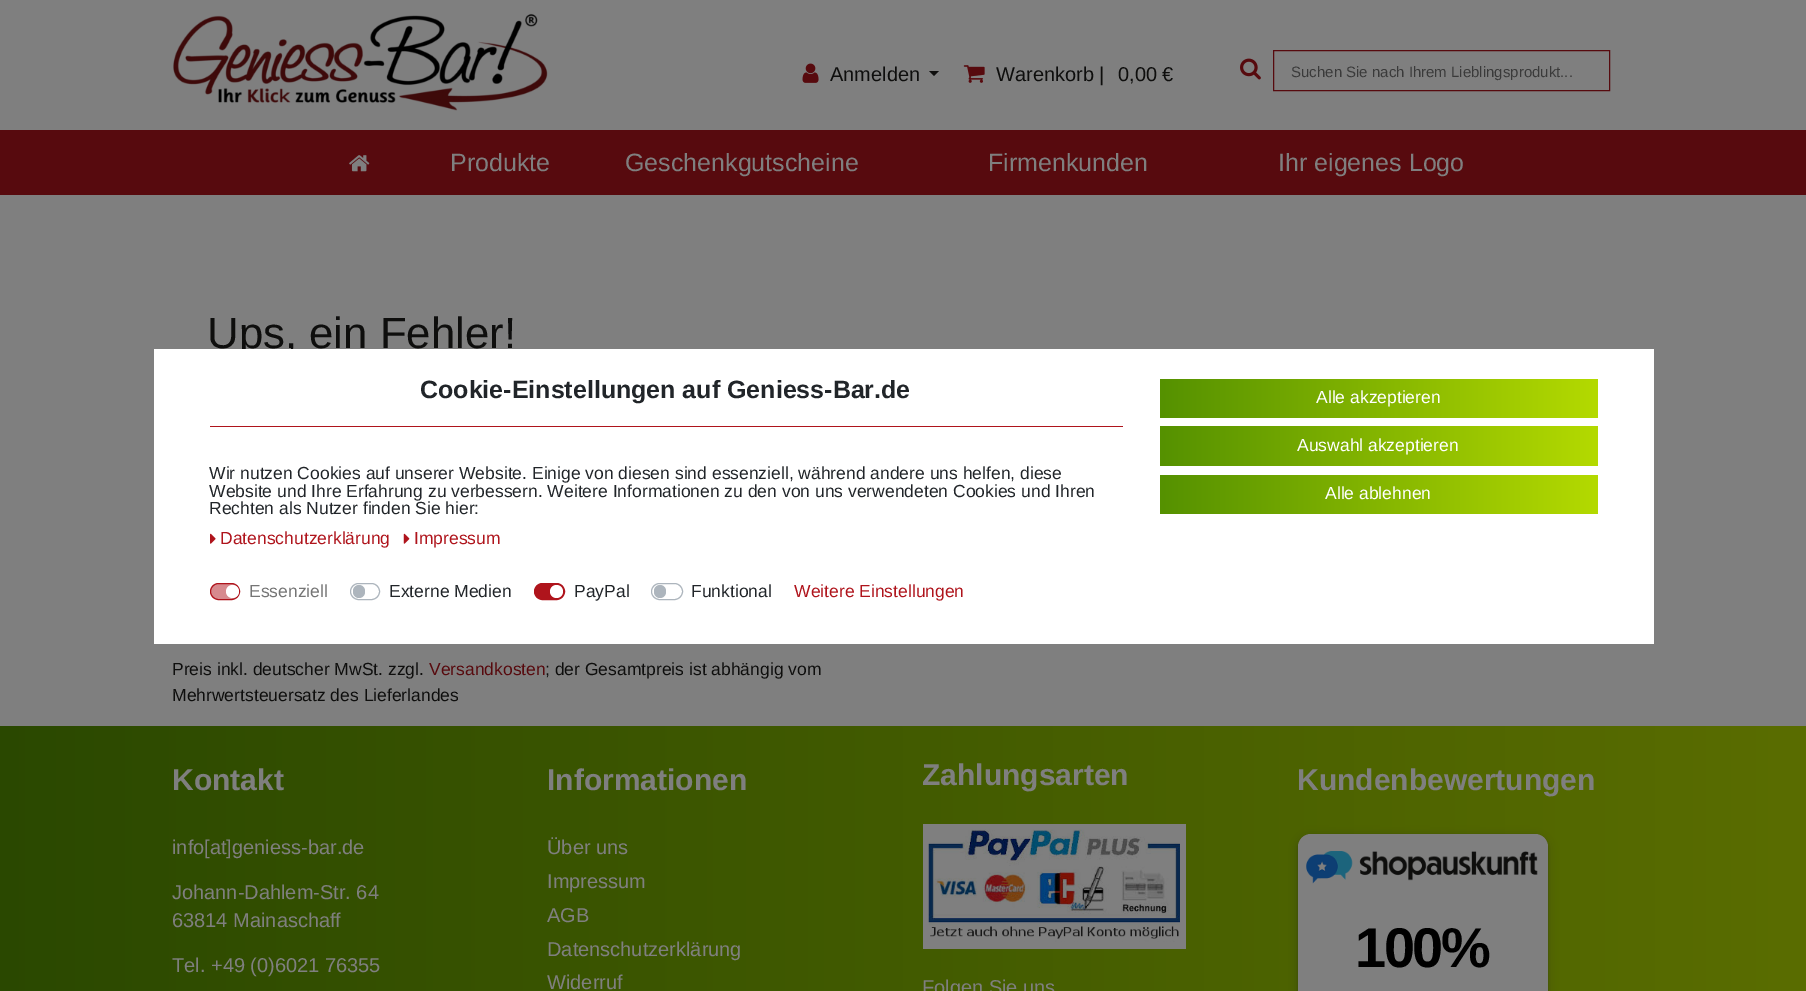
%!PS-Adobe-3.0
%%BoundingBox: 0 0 1806 991
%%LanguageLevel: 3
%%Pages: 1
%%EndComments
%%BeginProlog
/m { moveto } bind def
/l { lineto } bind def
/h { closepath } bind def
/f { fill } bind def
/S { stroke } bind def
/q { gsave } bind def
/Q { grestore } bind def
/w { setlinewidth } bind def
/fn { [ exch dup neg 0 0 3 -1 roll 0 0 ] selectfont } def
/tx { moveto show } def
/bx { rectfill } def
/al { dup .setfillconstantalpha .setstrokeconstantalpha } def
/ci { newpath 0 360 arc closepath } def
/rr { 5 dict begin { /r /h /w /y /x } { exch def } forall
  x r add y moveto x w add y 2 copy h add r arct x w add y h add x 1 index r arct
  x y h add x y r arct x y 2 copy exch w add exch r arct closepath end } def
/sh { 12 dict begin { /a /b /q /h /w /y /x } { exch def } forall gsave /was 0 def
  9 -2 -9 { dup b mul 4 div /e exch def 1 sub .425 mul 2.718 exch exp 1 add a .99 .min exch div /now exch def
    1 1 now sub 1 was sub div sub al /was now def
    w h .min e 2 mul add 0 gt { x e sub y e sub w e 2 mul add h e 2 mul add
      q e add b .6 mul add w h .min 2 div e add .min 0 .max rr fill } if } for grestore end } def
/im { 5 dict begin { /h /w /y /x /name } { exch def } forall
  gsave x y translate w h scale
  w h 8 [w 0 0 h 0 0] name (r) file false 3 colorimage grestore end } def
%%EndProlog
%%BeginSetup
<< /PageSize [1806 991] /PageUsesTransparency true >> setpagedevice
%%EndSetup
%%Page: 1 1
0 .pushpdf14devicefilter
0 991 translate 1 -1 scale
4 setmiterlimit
1 setgray
0 0 1806 991 bx
(image0.raw) 173 13 375 98 im
(image1.raw) 802 63 17 20 im
/LiberationSans-Regular 20 fn
0.114 0.114 0.106 setrgbcolor
(Anmelden) 830 81 tx
929 71 m 939 71 l 934 76 l h f
(image2.raw) 963 65 22 18 im
(Warenkorb |) 996 81 tx
(0,00 €) 1118 81 tx
(image3.raw) 1240 58 21 22 im
0.686 0.078 0.11 setrgbcolor
1273.5 50.5 336 40 rectstroke
/LiberationSans-Regular 15 fn
0.459 setgray
(Suchen Sie nach Ihrem Lieblingsprodukt...) 1291 77 tx
0.686 0.078 0.11 setrgbcolor
0 130 1806 65 bx
(image4.raw) 349 155 21 17 im
/LiberationSans-Regular 25 fn
1 setgray
(Produkte) 450 171 tx
(Geschenkgutscheine) 625 171 tx
(Firmenkunden) 988 171 tx
(Ihr eigenes Logo) 1278 171 tx
/LiberationSans-Regular 43.75 fn
0.114 0.114 0.106 setrgbcolor
(Ups, ein Fehler!) 207 348 tx
/LiberationSans-Regular 17.5 fn
(Preis inkl. deutscher MwSt. zzgl.) 172 675 tx
0.686 0.078 0.11 setrgbcolor
(Versandkosten) 429 675 tx
0.114 0.114 0.106 setrgbcolor
(; der Gesamtpreis ist abhängig vom) 545 675 tx
(Mehrwertsteuersatz des Lieferlandes) 172 701 tx
q 0 726 m 1806 726 l 1806 991 l 0 991 l h clip newpath
<< /ShadingType 2 /ColorSpace /DeviceRGB /Coords [0 949 1806 949] /Extend [true true] /Function << /FunctionType 2 /Domain [0 1] /C0 [0.333 0.569 0.004] /C1 [0.706 0.855 0] /N 1 >> >> shfill Q
/LiberationSans-Bold 30 fn
1 setgray
(Kontakt) 172 790 tx
/LiberationSans-Regular 20 fn
(info[at]geniess-bar.de) 172 854 tx
(Johann-Dahlem-Str. 64) 172 899 tx
(63814 Mainaschaff) 172 927 tx
(Tel. +49 \(0\)6021 76355) 172 972 tx
/LiberationSans-Bold 30 fn
(Informationen) 547 790 tx
/LiberationSans-Regular 20 fn
(Über uns) 547 854 tx
(Impressum) 547 888 tx
(AGB) 547 922 tx
(Datenschutzerklärung) 547 956 tx
(Widerruf) 547 989 tx
/LiberationSans-Bold 30 fn
(Zahlungsarten) 922 785 tx
923 824 263 125 bx
(image5.raw) 928 829 252 113 im
/LiberationSans-Regular 20 fn
(Folgen Sie uns) 922 994 tx
/LiberationSans-Bold 30 fn
(Kundenbewertungen) 1297 790 tx
0.235 0.251 0.263 setrgbcolor
1295 834 255 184 15 4 0.15 sh
1298 835 250 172 13 1 0.3 sh
1 setgray
1298 834 250 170 13 rr f
(image6.raw) 1306 851 232 33 im
/LiberationSans-Bold 56 fn
0 setgray
1355 967 m -2.5 0 (100%) ashow
0.5 al
2798 w
-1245 -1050 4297 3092 rectstroke
1 al
1 setgray
154 349 1500 295 bx
0.686 0.078 0.11 setrgbcolor
210 426 913 1 bx
/LiberationSans-Bold 25 fn
0.129 0.145 0.161 setrgbcolor
(Cookie-Einstellungen auf Geniess-Bar.de) 420 398 tx
/LiberationSans-Regular 17.5 fn
(Wir nutzen Cookies auf unserer Website. Einige von diesen sind essenziell, während andere uns helfen, diese) 209 479 tx
(Website und Ihre Erfahrung zu verbessern. Weitere Informationen zu den von uns verwendeten Cookies und Ihren) 209 497 tx
(Rechten als Nutzer finden Sie hier:) 209 514 tx
(image7.raw) 210 533 6 11 im
0.686 0.078 0.11 setrgbcolor
(Datenschutzerklärung) 220 544 tx
(image8.raw) 403 533 7 11 im
(Impressum) 414 544 tx
0.843 0.541 0.557 setrgbcolor
210.5 583.5 29 16 8 rr q f Q
0.686 0.078 0.11 setrgbcolor
1 w
S
0.459 setgray
(Essenziell) 249 597 tx
1 setgray
232.5 591.5 6.5 ci f
0.678 0.71 0.741 setrgbcolor
350.5 583.5 29 16 8 rr S
0.129 0.145 0.161 setrgbcolor
(Externe Medien) 389 597 tx
0.678 0.71 0.741 setrgbcolor
353 585 12 13 6 rr f
0.686 0.078 0.11 setrgbcolor
534.5 583.5 30 16 8 rr q f Q
S
0.129 0.145 0.161 setrgbcolor
(PayPal) 574 597 tx
1 setgray
556.5 591.5 6.5 ci f
0.678 0.71 0.741 setrgbcolor
651.5 583.5 31 16 8 rr S
0.129 0.145 0.161 setrgbcolor
(Funktional) 691 597 tx
0.678 0.71 0.741 setrgbcolor
654 585 12 13 6 rr f
0.686 0.078 0.11 setrgbcolor
(Weitere Einstellungen) 794 597 tx
q 1160 379 438 39 2 rr clip newpath
<< /ShadingType 2 /ColorSpace /DeviceRGB /Coords [1160 398 1598 398] /Extend [true true] /Function << /FunctionType 2 /Domain [0 1] /C0 [0.333 0.569 0.004] /C1 [0.706 0.855 0] /N 1 >> >> shfill Q
1 setgray
(Alle akzeptieren) 1316 403 tx
q 1160 426 438 40 2 rr clip newpath
<< /ShadingType 2 /ColorSpace /DeviceRGB /Coords [1160 446 1598 446] /Extend [true true] /Function << /FunctionType 2 /Domain [0 1] /C0 [0.333 0.569 0.004] /C1 [0.706 0.855 0] /N 1 >> >> shfill Q
(Auswahl akzeptieren) 1297 451 tx
q 1160 475 438 39 2 rr clip newpath
<< /ShadingType 2 /ColorSpace /DeviceRGB /Coords [1160 494 1598 494] /Extend [true true] /Function << /FunctionType 2 /Domain [0 1] /C0 [0.333 0.569 0.004] /C1 [0.706 0.855 0] /N 1 >> >> shfill Q
(Alle ablehnen) 1325 499 tx
.poppdf14devicefilter showpage
%%EOF
